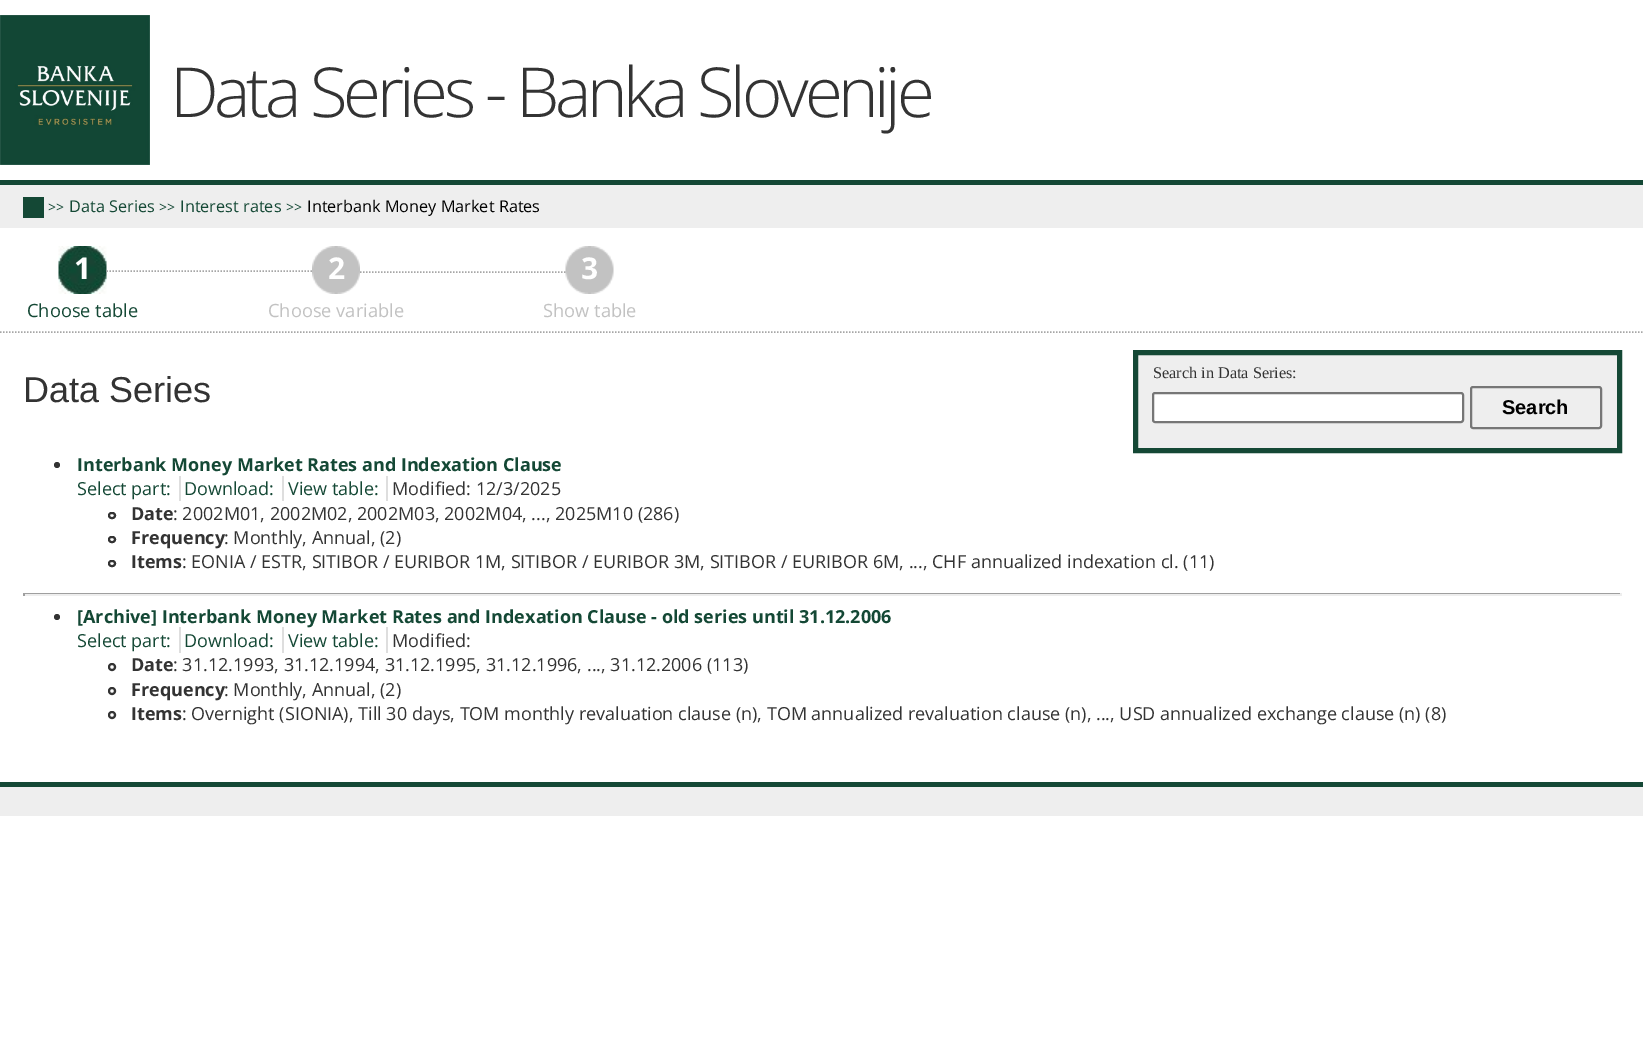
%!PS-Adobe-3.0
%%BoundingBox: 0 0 1643 1048
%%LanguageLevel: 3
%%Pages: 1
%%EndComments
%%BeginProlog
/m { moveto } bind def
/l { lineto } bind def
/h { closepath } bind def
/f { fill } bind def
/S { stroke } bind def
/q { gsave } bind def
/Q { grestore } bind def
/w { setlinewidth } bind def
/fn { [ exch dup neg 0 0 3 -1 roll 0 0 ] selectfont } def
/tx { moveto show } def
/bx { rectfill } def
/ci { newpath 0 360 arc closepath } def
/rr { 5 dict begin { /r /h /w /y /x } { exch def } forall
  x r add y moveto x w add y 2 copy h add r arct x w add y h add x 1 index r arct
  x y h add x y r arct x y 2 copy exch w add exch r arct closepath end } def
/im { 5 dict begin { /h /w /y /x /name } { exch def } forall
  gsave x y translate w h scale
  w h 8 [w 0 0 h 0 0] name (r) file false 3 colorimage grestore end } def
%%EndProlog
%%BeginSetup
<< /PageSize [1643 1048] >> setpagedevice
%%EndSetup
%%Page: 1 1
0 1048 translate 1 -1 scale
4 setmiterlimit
1 setgray
0 0 1643 1048 bx
(image0.raw) 0 15 150 150 im
/OpenSans-Light 69 fn
0.2 setgray
170 117 m -4.5 0 (Data Series - Banka Slovenije) ashow
0.933 setgray
0 185 1643 43 bx
0.078 0.282 0.208 setrgbcolor
0 180 1643 5 bx
23 197 21 21 bx
/OpenSans-Regular 14 fn
(>>) 48 212 tx
/OpenSans-Regular 16.25 fn
(Data Series) 69 212 tx
/OpenSans-Regular 14 fn
(>>) 159 212 tx
/OpenSans-Regular 16.25 fn
(Interest rates) 180 212 tx
/OpenSans-Regular 14 fn
(>>) 286 212 tx
/OpenSans-Regular 16.25 fn
0 setgray
(Interbank Money Market Rates) 307 212 tx
(image1.raw) 58 246 49 48 im
/OpenSans-Bold 30 fn
1 setgray
(1) 74 279 tx
/OpenSans-Regular 18.25 fn
0.078 0.282 0.208 setrgbcolor
(Choose table) 27 317 tx
(image2.raw) 312 246 48 48 im
/OpenSans-Bold 30 fn
1 setgray
(2) 328 279 tx
/OpenSans-Regular 18.25 fn
0.761 setgray
(Choose variable) 268 317 tx
(image3.raw) 565 246 49 48 im
/OpenSans-Bold 30 fn
1 setgray
(3) 581 279 tx
/OpenSans-Regular 18.25 fn
0.761 setgray
(Show table) 543 317 tx
0.651 setgray
1.5 w
[1.5 1.5] 0 setdash
106.5 271 m 312 271 l S
360 272 m 565.5 272 l S
0 332 m 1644 332 l S
/LiberationSans-Regular 36 fn
0.2 setgray
(Data Series) 23 402 tx
0.933 setgray
1135.5 352.5 m 1619.5 352.5 l 1619.5 450.5 l 1135.5 450.5 l h q f Q
0.078 0.282 0.208 setrgbcolor
5 w
[] 0 setdash
S
/LiberationSerif-Regular 16.25 fn
0.2 setgray
(Search in Data Series:) 1153 378 tx
1 setgray
1153 393 310 29 2 rr q f Q
0.463 setgray
2 w
S
1471 387 130 41 2 rr S
/LiberationSans-Bold 20 fn
0 setgray
(Search) 1502 414 tx
0.2 setgray
57 465 3 ci f
/OpenSans-Bold 18 fn
0.078 0.282 0.208 setrgbcolor
(Interbank Money Market Rates and Indexation Clause) 77 471 tx
/OpenSans-Regular 18 fn
(Select part:) 77 495 tx
0.871 setgray
179 476 2 25 bx
0.078 0.282 0.208 setrgbcolor
(Download:) 184 495 tx
0.871 setgray
282 476 2 25 bx
0.078 0.282 0.208 setrgbcolor
(View table:) 288 495 tx
0.871 setgray
386 476 2 25 bx
0.2 setgray
(Modified: 12/3/2025) 392 495 tx
109 513 6 5 2.5 rr S
/OpenSans-Bold 18 fn
(Date) 131 520 tx
/OpenSans-Regular 18 fn
(: 2002M01, 2002M02, 2002M03, 2002M04, ..., 2025M10 \(286\)) 173 520 tx
109 537 6 5 2.5 rr S
/OpenSans-Bold 18 fn
(Frequency) 131 544 tx
/OpenSans-Regular 18 fn
(: Monthly, Annual, \(2\)) 224 544 tx
109 561 6 5 2.5 rr S
/OpenSans-Bold 18 fn
(Items) 131 568 tx
/OpenSans-Regular 18 fn
(: EONIA / ESTR, SITIBOR / EURIBOR 1M, SITIBOR / EURIBOR 3M, SITIBOR / EURIBOR 6M, ..., CHF annualized indexation cl. \(11\)) 182 568 tx
0.624 setgray
23 593 1599 1 bx
0.933 setgray
1620 593 2 3 bx
23 594 1599 2 bx
0.624 setgray
23 593 2 3 bx
0.2 setgray
57 617 3 ci f
/OpenSans-Bold 18 fn
0.078 0.282 0.208 setrgbcolor
([Archive] Interbank Money Market Rates and Indexation Clause - old series until 31.12.2006) 77 623 tx
/OpenSans-Regular 18 fn
(Select part:) 77 647 tx
0.871 setgray
179 627 2 26 bx
0.078 0.282 0.208 setrgbcolor
(Download:) 184 647 tx
0.871 setgray
282 627 2 26 bx
0.078 0.282 0.208 setrgbcolor
(View table:) 288 647 tx
0.871 setgray
386 627 2 26 bx
0.2 setgray
(Modified:) 392 647 tx
112 667 3 ci S
/OpenSans-Bold 18 fn
(Date) 131 671 tx
/OpenSans-Regular 18 fn
(: 31.12.1993, 31.12.1994, 31.12.1995, 31.12.1996, ..., 31.12.2006 \(113\)) 173 671 tx
112 691 3 ci S
/OpenSans-Bold 18 fn
(Frequency) 131 696 tx
/OpenSans-Regular 18 fn
(: Monthly, Annual, \(2\)) 224 696 tx
112 715 3 ci S
/OpenSans-Bold 18 fn
(Items) 131 720 tx
/OpenSans-Regular 18 fn
(: Overnight \(SIONIA\), Till 30 days, TOM monthly revaluation clause \(n\), TOM annualized revaluation clause \(n\), ..., USD annualized exchange clause \(n\) \(8\)) 182 720 tx
0.933 setgray
0 787 1643 29 bx
0.078 0.282 0.208 setrgbcolor
0 782 1643 5 bx
showpage
%%EOF
